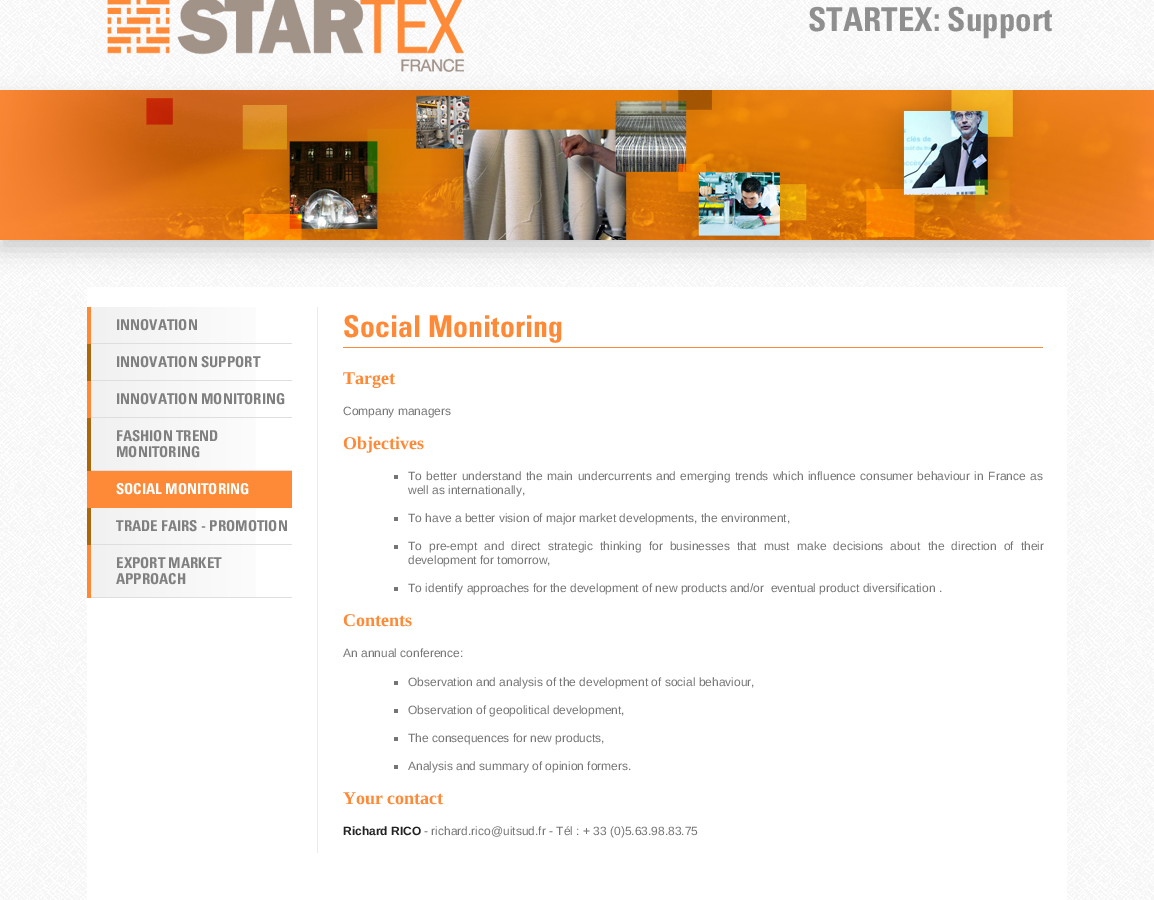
%!PS-Adobe-3.0
%%BoundingBox: 0 0 1154 900
%%LanguageLevel: 3
%%Pages: 1
%%EndComments
%%BeginProlog
/m { moveto } bind def
/l { lineto } bind def
/h { closepath } bind def
/q { gsave } bind def
/Q { grestore } bind def
/fn { [ exch dup neg 0 0 3 -1 roll 0 0 ] selectfont } def
/tx { moveto show } def
/bx { rectfill } def
/al { dup .setfillconstantalpha .setstrokeconstantalpha } def
/rr { 5 dict begin { /r /h /w /y /x } { exch def } forall
  x r add y moveto x w add y 2 copy h add r arct x w add y h add x 1 index r arct
  x y h add x y r arct x y 2 copy exch w add exch r arct closepath end } def
/sh { 12 dict begin { /a /b /q /h /w /y /x } { exch def } forall gsave /was 0 def
  9 -2 -9 { dup b mul 4 div /e exch def 1 sub .425 mul 2.718 exch exp 1 add a .99 .min exch div /now exch def
    1 1 now sub 1 was sub div sub al /was now def
    w h .min e 2 mul add 0 gt { x e sub y e sub w e 2 mul add h e 2 mul add
      q e add b .6 mul add w h .min 2 div e add .min 0 .max rr fill } if } for grestore end } def
/im { 5 dict begin { /h /w /y /x /name } { exch def } forall
  gsave x y translate w h scale
  w h 8 [w 0 0 h 0 0] name (r) file false 3 colorimage grestore end } def
%%EndProlog
%%BeginSetup
<< /PageSize [1154 900] /PageUsesTransparency true >> setpagedevice
%%EndSetup
%%Page: 1 1
0 .pushpdf14devicefilter
0 900 translate 1 -1 scale
4 setmiterlimit
1 setgray
0 0 1154 900 bx
(image0.raw) 0 0 1154 900 im
0.8 setgray
0 100 1154 150 0 11 1 sh
(image1.raw) 107 0 357 72 im
/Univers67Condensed-Bold 33 fn
0.561 setgray
(STARTEX: Support) 808 31 tx
(image2.raw) 0 90 1154 150 im
1 setgray
87 287 980 613 bx
0.996 0.541 0.22 setrgbcolor
87 307 4 37 bx
q 91 307 m 256 307 l 256 343 l 91 343 l h clip newpath
<< /ShadingType 2 /ColorSpace /DeviceRGB /Coords [91 325 292 325] /Extend [true true] /Function << /FunctionType 2 /Domain [0 1] /C0 [0.945 0.945 0.945] /C1 [1 1 1] /N 1 >> >> shfill Q
0.871 setgray
91 343 201 1 bx
/Univers67Condensed-Bold 15 fn
0.502 setgray
(INNOVATION) 116 330 tx
0.675 0.404 0.035 setrgbcolor
87 344 4 37 bx
q 91 344 m 256 344 l 256 380 l 91 380 l h clip newpath
<< /ShadingType 2 /ColorSpace /DeviceRGB /Coords [91 362 292 362] /Extend [true true] /Function << /FunctionType 2 /Domain [0 1] /C0 [0.945 0.945 0.945] /C1 [1 1 1] /N 1 >> >> shfill Q
0.871 setgray
91 380 201 1 bx
0.502 setgray
(INNOVATION SUPPORT) 116 367 tx
0.996 0.541 0.22 setrgbcolor
87 381 4 37 bx
q 91 381 m 256 381 l 256 417 l 91 417 l h clip newpath
<< /ShadingType 2 /ColorSpace /DeviceRGB /Coords [91 399 292 399] /Extend [true true] /Function << /FunctionType 2 /Domain [0 1] /C0 [0.945 0.945 0.945] /C1 [1 1 1] /N 1 >> >> shfill Q
0.871 setgray
91 417 201 1 bx
0.502 setgray
(INNOVATION MONITORING) 116 404 tx
0.675 0.404 0.035 setrgbcolor
87 418 4 53 bx
q 91 418 m 256 418 l 256 470 l 91 470 l h clip newpath
<< /ShadingType 2 /ColorSpace /DeviceRGB /Coords [91 444 292 444] /Extend [true true] /Function << /FunctionType 2 /Domain [0 1] /C0 [0.945 0.945 0.945] /C1 [1 1 1] /N 1 >> >> shfill Q
0.871 setgray
91 470 201 1 bx
0.502 setgray
(FASHION TREND) 116 441 tx
(MONITORING) 116 457 tx
0.996 0.541 0.22 setrgbcolor
87 471 205 37 bx
1 setgray
(SOCIAL MONITORING) 116 494 tx
0.675 0.404 0.035 setrgbcolor
87 508 4 37 bx
q 91 508 m 256 508 l 256 544 l 91 544 l h clip newpath
<< /ShadingType 2 /ColorSpace /DeviceRGB /Coords [91 526 292 526] /Extend [true true] /Function << /FunctionType 2 /Domain [0 1] /C0 [0.945 0.945 0.945] /C1 [1 1 1] /N 1 >> >> shfill Q
0.871 setgray
91 544 201 1 bx
0.502 setgray
(TRADE FAIRS - PROMOTION) 116 531 tx
0.996 0.541 0.22 setrgbcolor
87 545 4 53 bx
q 91 545 m 256 545 l 256 597 l 91 597 l h clip newpath
<< /ShadingType 2 /ColorSpace /DeviceRGB /Coords [91 571 292 571] /Extend [true true] /Function << /FunctionType 2 /Domain [0 1] /C0 [0.945 0.945 0.945] /C1 [1 1 1] /N 1 >> >> shfill Q
0.871 setgray
91 597 201 1 bx
0.502 setgray
(EXPORT MARKET) 116 568 tx
(APPROACH) 116 584 tx
0.922 setgray
317 307 1 546 bx
0.996 0.541 0.22 setrgbcolor
343 347 700 1 bx
/Univers67Condensed-Bold 30 fn
(Social Monitoring) 343 337 tx
/LiberationSerif-Bold 18 fn
(Target) 343 384 tx
/LiberationSans-Regular 12 fn
0.459 setgray
(Company managers) 343 415 tx
/LiberationSerif-Bold 18 fn
0.996 0.541 0.22 setrgbcolor
(Objectives) 343 449 tx
0.459 setgray
394 475 4 4 bx
/LiberationSans-Regular 12 fn
408 480 m 1.1 0 32 (To better understand the main undercurrents and emerging trends which influence consumer behaviour in France as) widthshow
(well as internationally,) 408 494 tx
394 517 4 4 bx
(To have a better vision of major market developments, the environment,) 408 522 tx
394 545 4 4 bx
408 550 m 3.75 0 32 (To pre-empt and direct strategic thinking for businesses that must make decisions about the direction of their) widthshow
(development for tomorrow,) 408 564 tx
394 587 4 4 bx
(To identify approaches for the development of new products and/or  eventual product diversification .) 408 592 tx
/LiberationSerif-Bold 18 fn
0.996 0.541 0.22 setrgbcolor
(Contents) 343 626 tx
/LiberationSans-Regular 12 fn
0.459 setgray
(An annual conference:) 343 657 tx
394 681 4 4 bx
(Observation and analysis of the development of social behaviour,) 408 686 tx
394 709 4 4 bx
(Observation of geopolitical development,) 408 714 tx
394 737 4 4 bx
(The consequences for new products,) 408 742 tx
394 765 4 4 bx
(Analysis and summary of opinion formers.) 408 770 tx
/LiberationSerif-Bold 18 fn
0.996 0.541 0.22 setrgbcolor
(Your contact) 343 804 tx
/LiberationSans-Bold 12 fn
0.133 setgray
(Richard RICO) 343 835 tx
/LiberationSans-Regular 12 fn
0.459 setgray
(- richard.rico@uitsud.fr - Tél : + 33 \(0\)5.63.98.83.75) 424 835 tx
.poppdf14devicefilter showpage
%%EOF
